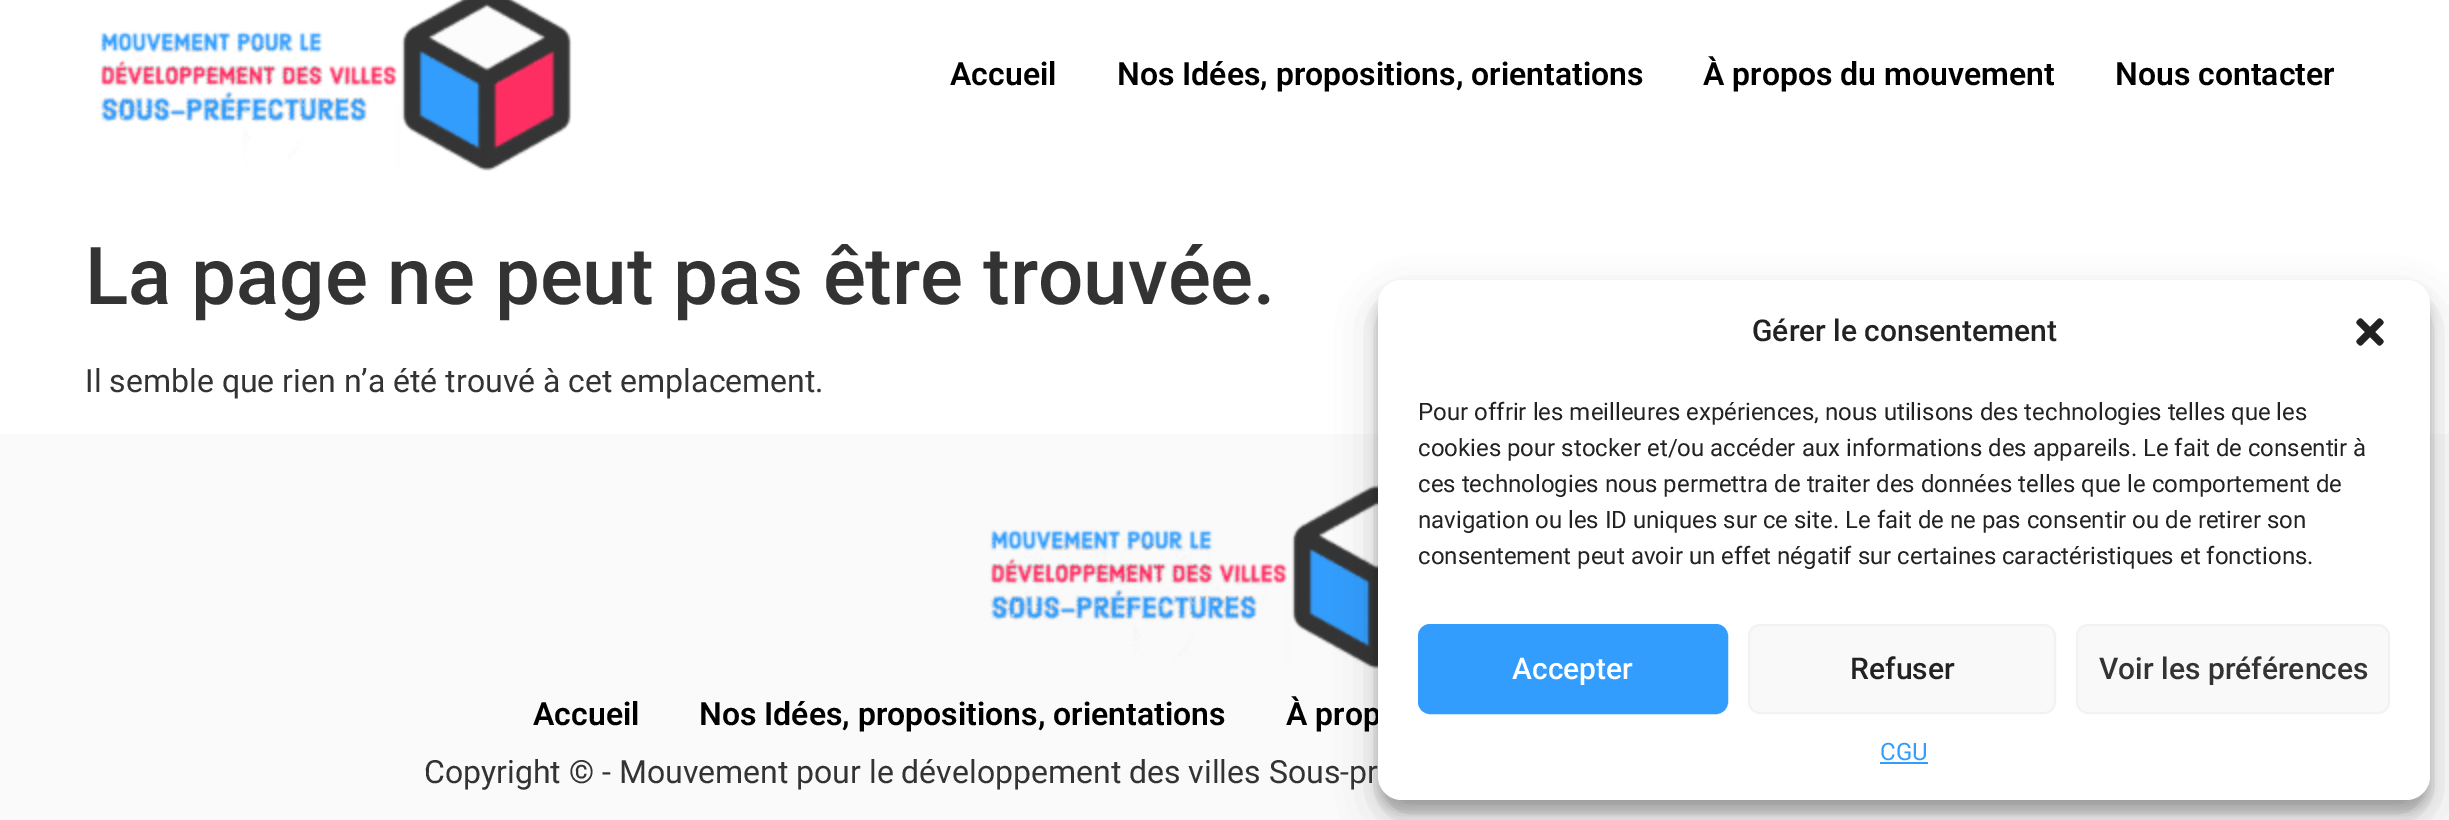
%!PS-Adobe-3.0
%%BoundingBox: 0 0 2449 820
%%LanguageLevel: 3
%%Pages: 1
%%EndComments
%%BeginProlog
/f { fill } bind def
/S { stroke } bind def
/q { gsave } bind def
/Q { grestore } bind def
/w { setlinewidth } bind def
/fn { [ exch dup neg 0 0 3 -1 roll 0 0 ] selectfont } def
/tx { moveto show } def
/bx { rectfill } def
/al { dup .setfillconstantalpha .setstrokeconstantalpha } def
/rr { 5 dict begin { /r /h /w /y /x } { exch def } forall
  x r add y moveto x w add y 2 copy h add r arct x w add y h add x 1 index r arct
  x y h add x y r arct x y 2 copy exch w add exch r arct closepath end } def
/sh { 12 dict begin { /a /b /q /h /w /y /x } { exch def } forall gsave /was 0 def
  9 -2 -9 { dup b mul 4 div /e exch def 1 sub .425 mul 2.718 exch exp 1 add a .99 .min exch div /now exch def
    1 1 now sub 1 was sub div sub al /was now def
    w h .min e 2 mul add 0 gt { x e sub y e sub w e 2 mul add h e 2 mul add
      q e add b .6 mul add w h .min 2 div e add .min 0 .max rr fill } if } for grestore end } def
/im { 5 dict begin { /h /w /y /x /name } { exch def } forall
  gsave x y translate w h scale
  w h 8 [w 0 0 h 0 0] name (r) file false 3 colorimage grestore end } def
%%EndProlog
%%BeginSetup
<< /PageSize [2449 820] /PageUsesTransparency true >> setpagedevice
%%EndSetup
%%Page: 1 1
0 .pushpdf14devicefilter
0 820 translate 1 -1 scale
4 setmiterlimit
1 setgray
0 0 2449 820 bx
(image0.raw) 99 0 473 171 im
/Roboto-SemiBold 32 fn
0 setgray
(Accueil) 950 85 tx
(Nos Idées, propositions, orientations) 1117 85 tx
(À propos du mouvement) 1703 85 tx
(Nous contacter) 2115 85 tx
/Roboto-Medium 80 fn
0.2 setgray
(La page ne peut pas être trouvée.) 85 304 tx
/Roboto-Regular 32 fn
(Il semble que rien n’a été trouvé à cet emplacement.) 85 392 tx
0.98 setgray
0 434 2449 386 bx
(image2.raw) 989 485 389 184 im
0 setgray
1378 292 1052 520 24 6 0.23 sh
1378 300 1052 520 24 20 0.19 sh
/Roboto-SemiBold 32 fn
(À prop) 1286 725 tx
1 setgray
1378 280 1052 520 24 rr f
/Roboto-Medium 30 fn
0.133 setgray
(Gérer le consentement) 1752 341 tx
(image1.raw) 2356 318 28 28 im
/Roboto-Regular 24 fn
(Pour offrir les meilleures expériences, nous utilisons des technologies telles que les) 1418 420 tx
(cookies pour stocker et/ou accéder aux informations des appareils. Le fait de consentir à) 1418 456 tx
(ces technologies nous permettra de traiter des données telles que le comportement de) 1418 492 tx
(navigation ou les ID uniques sur ce site. Le fait de ne pas consentir ou de retirer son) 1418 528 tx
(consentement peut avoir un effet négatif sur certaines caractéristiques et fonctions.) 1418 564 tx
0.196 0.616 0.992 setrgbcolor
1419 625 308 88 11 rr q f Q
2 w
S
/Roboto-Medium 30 fn
1 setgray
(Accepter) 1512 679 tx
0.976 setgray
1749 625 306 88 11 rr q f Q
0.949 setgray
S
0.133 setgray
(Refuser) 1850 679 tx
0.976 setgray
2077 625 312 88 11 rr q f Q
0.949 setgray
S
0.2 setgray
(Voir les préférences) 2099 679 tx
/Roboto-Regular 24 fn
0.196 0.616 0.992 setrgbcolor
(CGU) 1880 760 tx
1880 762 48 2 bx
/Roboto-SemiBold 32 fn
0 setgray
(Accueil) 533 725 tx
(Nos Idées, propositions, orientations) 699 725 tx
/Roboto-Regular 32 fn
0.2 setgray
(Copyright © - Mouvement pour le développement des villes Sous-pr) 424 783 tx
.poppdf14devicefilter showpage
%%EOF
